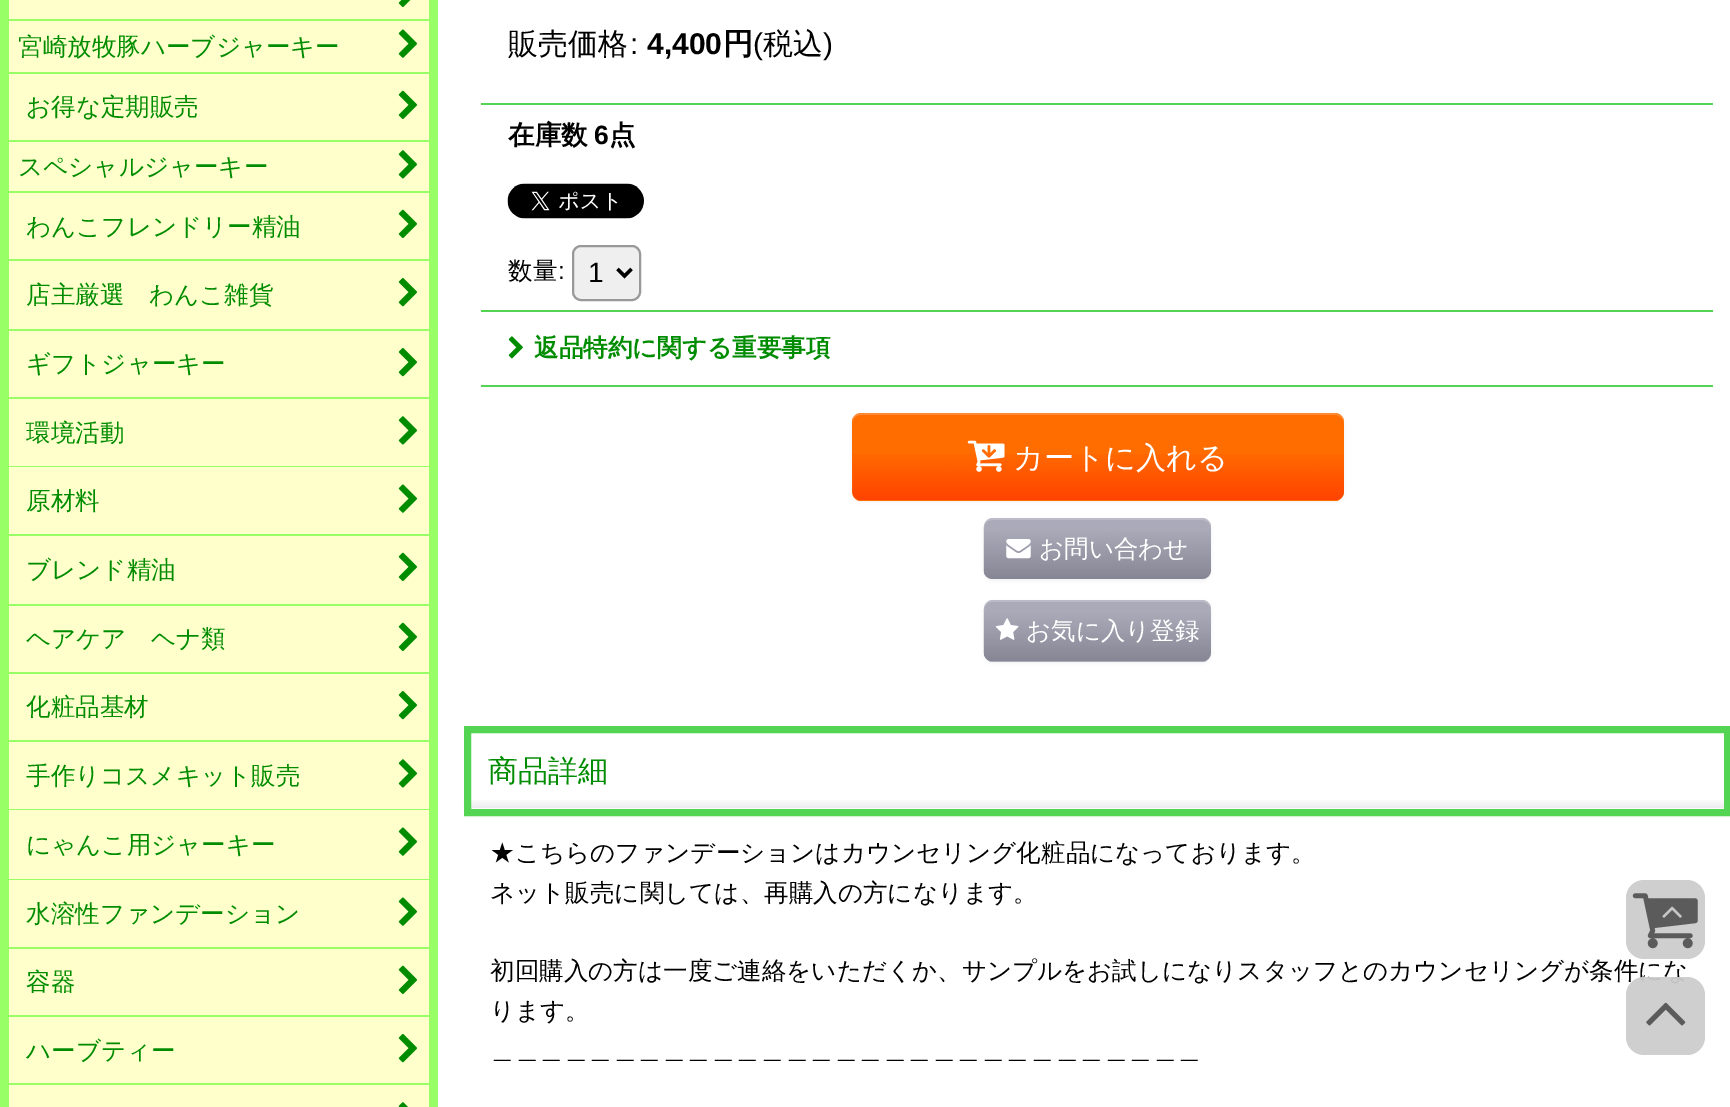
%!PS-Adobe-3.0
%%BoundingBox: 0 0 1730 1107
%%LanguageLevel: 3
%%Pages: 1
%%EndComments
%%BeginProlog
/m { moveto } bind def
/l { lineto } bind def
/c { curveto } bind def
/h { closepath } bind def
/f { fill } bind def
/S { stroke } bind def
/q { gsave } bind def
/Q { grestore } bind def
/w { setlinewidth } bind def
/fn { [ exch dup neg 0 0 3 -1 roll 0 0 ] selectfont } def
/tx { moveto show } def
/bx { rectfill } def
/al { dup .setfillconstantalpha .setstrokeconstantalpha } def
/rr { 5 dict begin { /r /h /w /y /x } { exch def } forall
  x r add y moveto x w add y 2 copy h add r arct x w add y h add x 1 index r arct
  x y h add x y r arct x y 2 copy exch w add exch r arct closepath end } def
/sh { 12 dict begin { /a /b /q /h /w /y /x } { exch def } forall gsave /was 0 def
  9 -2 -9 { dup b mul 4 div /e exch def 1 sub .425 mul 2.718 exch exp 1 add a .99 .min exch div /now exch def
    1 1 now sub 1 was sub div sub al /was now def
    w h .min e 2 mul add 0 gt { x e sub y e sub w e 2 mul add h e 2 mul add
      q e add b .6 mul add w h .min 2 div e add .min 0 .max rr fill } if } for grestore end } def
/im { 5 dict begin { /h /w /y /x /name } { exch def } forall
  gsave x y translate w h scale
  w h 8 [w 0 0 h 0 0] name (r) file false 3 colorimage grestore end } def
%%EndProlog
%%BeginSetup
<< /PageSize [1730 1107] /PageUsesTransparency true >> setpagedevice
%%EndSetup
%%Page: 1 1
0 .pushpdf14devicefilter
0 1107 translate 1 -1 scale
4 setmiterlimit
1 setgray
0 0 1730 1107 bx
0.6 1 0.4 setrgbcolor
0 0 438 1107 bx
1 1 0.8 setrgbcolor
9 0 420 19 bx
(image0.raw) 398 0 13 7 im
9 21 420 51 bx
/WenQuanYiZenHei-Medium 24.55 fn
0 0.549 0 setrgbcolor
(宮崎放牧豚ハーブジャーキー) 18 55 tx
(image1.raw) 398 29 19 29 im
1 1 0.8 setrgbcolor
9 74 420 66 bx
0 0.549 0 setrgbcolor
(お得な定期販売) 26 115 tx
(image2.raw) 398 90 19 29 im
1 1 0.8 setrgbcolor
9 142 420 49 bx
0 0.549 0 setrgbcolor
(スペシャルジャーキー) 18 175 tx
(image3.raw) 398 150 19 29 im
1 1 0.8 setrgbcolor
9 193 420 66 bx
0 0.549 0 setrgbcolor
(わんこフレンドリー精油) 26 235 tx
(image2.raw) 398 209 19 29 im
1 1 0.8 setrgbcolor
9 261 420 68 bx
0 0.549 0 setrgbcolor
(店主厳選　わんこ雑貨) 26 303 tx
(image4.raw) 398 278 19 29 im
1 1 0.8 setrgbcolor
9 331 420 66 bx
0 0.549 0 setrgbcolor
(ギフトジャーキー) 26 372 tx
(image4.raw) 398 348 19 29 im
1 1 0.8 setrgbcolor
9 399 420 67 bx
0 0.549 0 setrgbcolor
(環境活動) 26 441 tx
(image3.raw) 398 416 19 29 im
1 1 0.8 setrgbcolor
9 467 420 67 bx
0 0.549 0 setrgbcolor
(原材料) 26 509 tx
(image5.raw) 398 484 19 29 im
1 1 0.8 setrgbcolor
9 536 420 68 bx
0 0.549 0 setrgbcolor
(ブレンド精油) 26 578 tx
(image2.raw) 398 552 19 29 im
1 1 0.8 setrgbcolor
9 606 420 66 bx
0 0.549 0 setrgbcolor
(ヘアケア　ヘナ類) 26 647 tx
(image2.raw) 398 622 19 29 im
1 1 0.8 setrgbcolor
9 674 420 66 bx
0 0.549 0 setrgbcolor
(化粧品基材) 26 715 tx
(image4.raw) 398 691 19 29 im
1 1 0.8 setrgbcolor
9 742 420 67 bx
0 0.549 0 setrgbcolor
(手作りコスメキット販売) 26 784 tx
(image3.raw) 398 759 19 29 im
1 1 0.8 setrgbcolor
9 810 420 69 bx
0 0.549 0 setrgbcolor
(にゃんこ用ジャーキー) 26 853 tx
(image5.raw) 398 827 19 29 im
1 1 0.8 setrgbcolor
9 880 420 67 bx
0 0.549 0 setrgbcolor
(水溶性ファンデーション) 26 922 tx
(image6.raw) 398 897 19 29 im
1 1 0.8 setrgbcolor
9 949 420 66 bx
0 0.549 0 setrgbcolor
(容器) 26 990 tx
(image7.raw) 398 965 19 29 im
1 1 0.8 setrgbcolor
9 1017 420 66 bx
0 0.549 0 setrgbcolor
(ハーブティー) 26 1059 tx
(image4.raw) 398 1034 19 29 im
1 1 0.8 setrgbcolor
9 1085 420 22 bx
(image8.raw) 398 1102 10 5 im
0.325 0.835 0.325 setrgbcolor
481 103 1232 2 bx
/WenQuanYiZenHei-Medium 30 fn
0 setgray
(販売価格) 508 54 tx
/LiberationSans-Regular 30 fn
(:) 630 54 tx
/LiberationSans-Bold 30 fn
(4,400) 647 54 tx
/WenQuanYiZenHei-Bold 30 fn
(円) 723 54 tx
/LiberationSans-Regular 30 fn
(\() 753 54 tx
/WenQuanYiZenHei-Medium 30 fn
(税込) 763 54 tx
/LiberationSans-Regular 30 fn
(\)) 823 54 tx
/WenQuanYiZenHei-Bold 26.5 fn
(在庫数) 508 144 tx
/LiberationSans-Bold 26.5 fn
(6) 594 144 tx
/WenQuanYiZenHei-Bold 26.5 fn
(点) 609 144 tx
(image9.raw) 507 183 137 36 im
0.325 0.835 0.325 setrgbcolor
481 310 1232 2 bx
/WenQuanYiZenHei-Medium 24.55 fn
0 setgray
(数量) 508 279 tx
/LiberationSans-Regular 24.55 fn
(:) 558 279 tx
0.937 setgray
573 246 67 54 8 rr q f Q
0.6 setgray
2 w
S
0 setgray
3.5 w
617.5 269 m 624.5 276 l 631.5 269 l S
/LiberationSans-Regular 28 fn
(1) 588 282 tx
0.325 0.835 0.325 setrgbcolor
481 385 1232 2 bx
(image10.raw) 508 336 15 23 im
/WenQuanYiZenHei-Bold 24.55 fn
0 0.549 0 setrgbcolor
(返品特約に関する重要事項) 534 356 tx
0 setgray
852 415 492 87 9 2 0.05 sh
1 0.424 0 setrgbcolor
852 413 492 88 9 rr f
(image11.raw) 852 454 492 46 im
0.2 al
1 setgray
861 415 m 1335 415 l 1340 415 1344 419 1344 424 c 1344 418 1341 413 1335 413 c 861 413 l 855 413 852 418 852 424 c 852 419 856 415 861 415 c h f
1 al
(image12.raw) 967 440 38 32 im
/WenQuanYiZenHei-Medium 30.25 fn
(カートに入れる) 1013 468 tx
0 setgray
984 520 227 61 9 2 0.05 sh
0.667 0.667 0.725 setrgbcolor
984 518 227 61 9 rr f
(image13.raw) 983 526 228 53 im
0.2 al
1 setgray
992 520 m 1202 520 l 1207 520 1211 524 1211 528 c 1211 527 l 1211 522 1207 518 1202 518 c 993 518 l 988 518 984 522 984 527 c 984 528 l 984 524 987 520 992 520 c h f
1 al
(image14.raw) 1006 539 25 20 im
/WenQuanYiZenHei-Medium 24.5 fn
(お問い合わせ) 1039 557 tx
0 setgray
984 602 227 61 9 2 0.05 sh
0.667 0.667 0.725 setrgbcolor
984 600 227 62 9 rr f
(image15.raw) 983 608 228 53 im
0.2 al
1 setgray
992 602 m 1202 602 l 1207 602 1211 606 1211 611 c 1211 609 l 1211 604 1207 600 1202 600 c 993 600 l 988 600 984 604 984 609 c 984 611 l 984 606 987 602 992 602 c h f
1 al
(image16.raw) 995 618 24 22 im
(お気に入り登録) 1026 639 tx
(image17.raw) 463 800 1261 9 im
0.325 0.835 0.325 setrgbcolor
7 w
467.5 729.5 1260 83 rectstroke
/WenQuanYiZenHei-Medium 30 fn
0 0.549 0 setrgbcolor
(商品詳細) 488 781 tx
/WenQuanYiZenHei-Medium 24.55 fn
0 setgray
(★こちらのファンデーションはカウンセリング化粧品になっております。) 490 861 tx
(ネット販売に関しては、再購入の方になります。) 490 901 tx
(初回購入の方は一度ご連絡をいただくか、サンプルをお試しになりスタッフとのカウンセリングが条件にな) 490 979 tx
(ります。) 490 1019 tx
(＿＿＿＿＿＿＿＿＿＿＿＿＿＿＿＿＿＿＿＿＿＿＿＿＿＿＿＿＿) 490 1058 tx
0.812 setgray
1626 880 79 79 18 rr f
(image18.raw) 1632 893 66 56 im
(image19.raw) 1662 906 20 12 im
0.95 al
0.8 setgray
1626 977 79 78 18 rr f
1 al
(image20.raw) 1646 1002 40 24 im
.poppdf14devicefilter showpage
%%EOF
